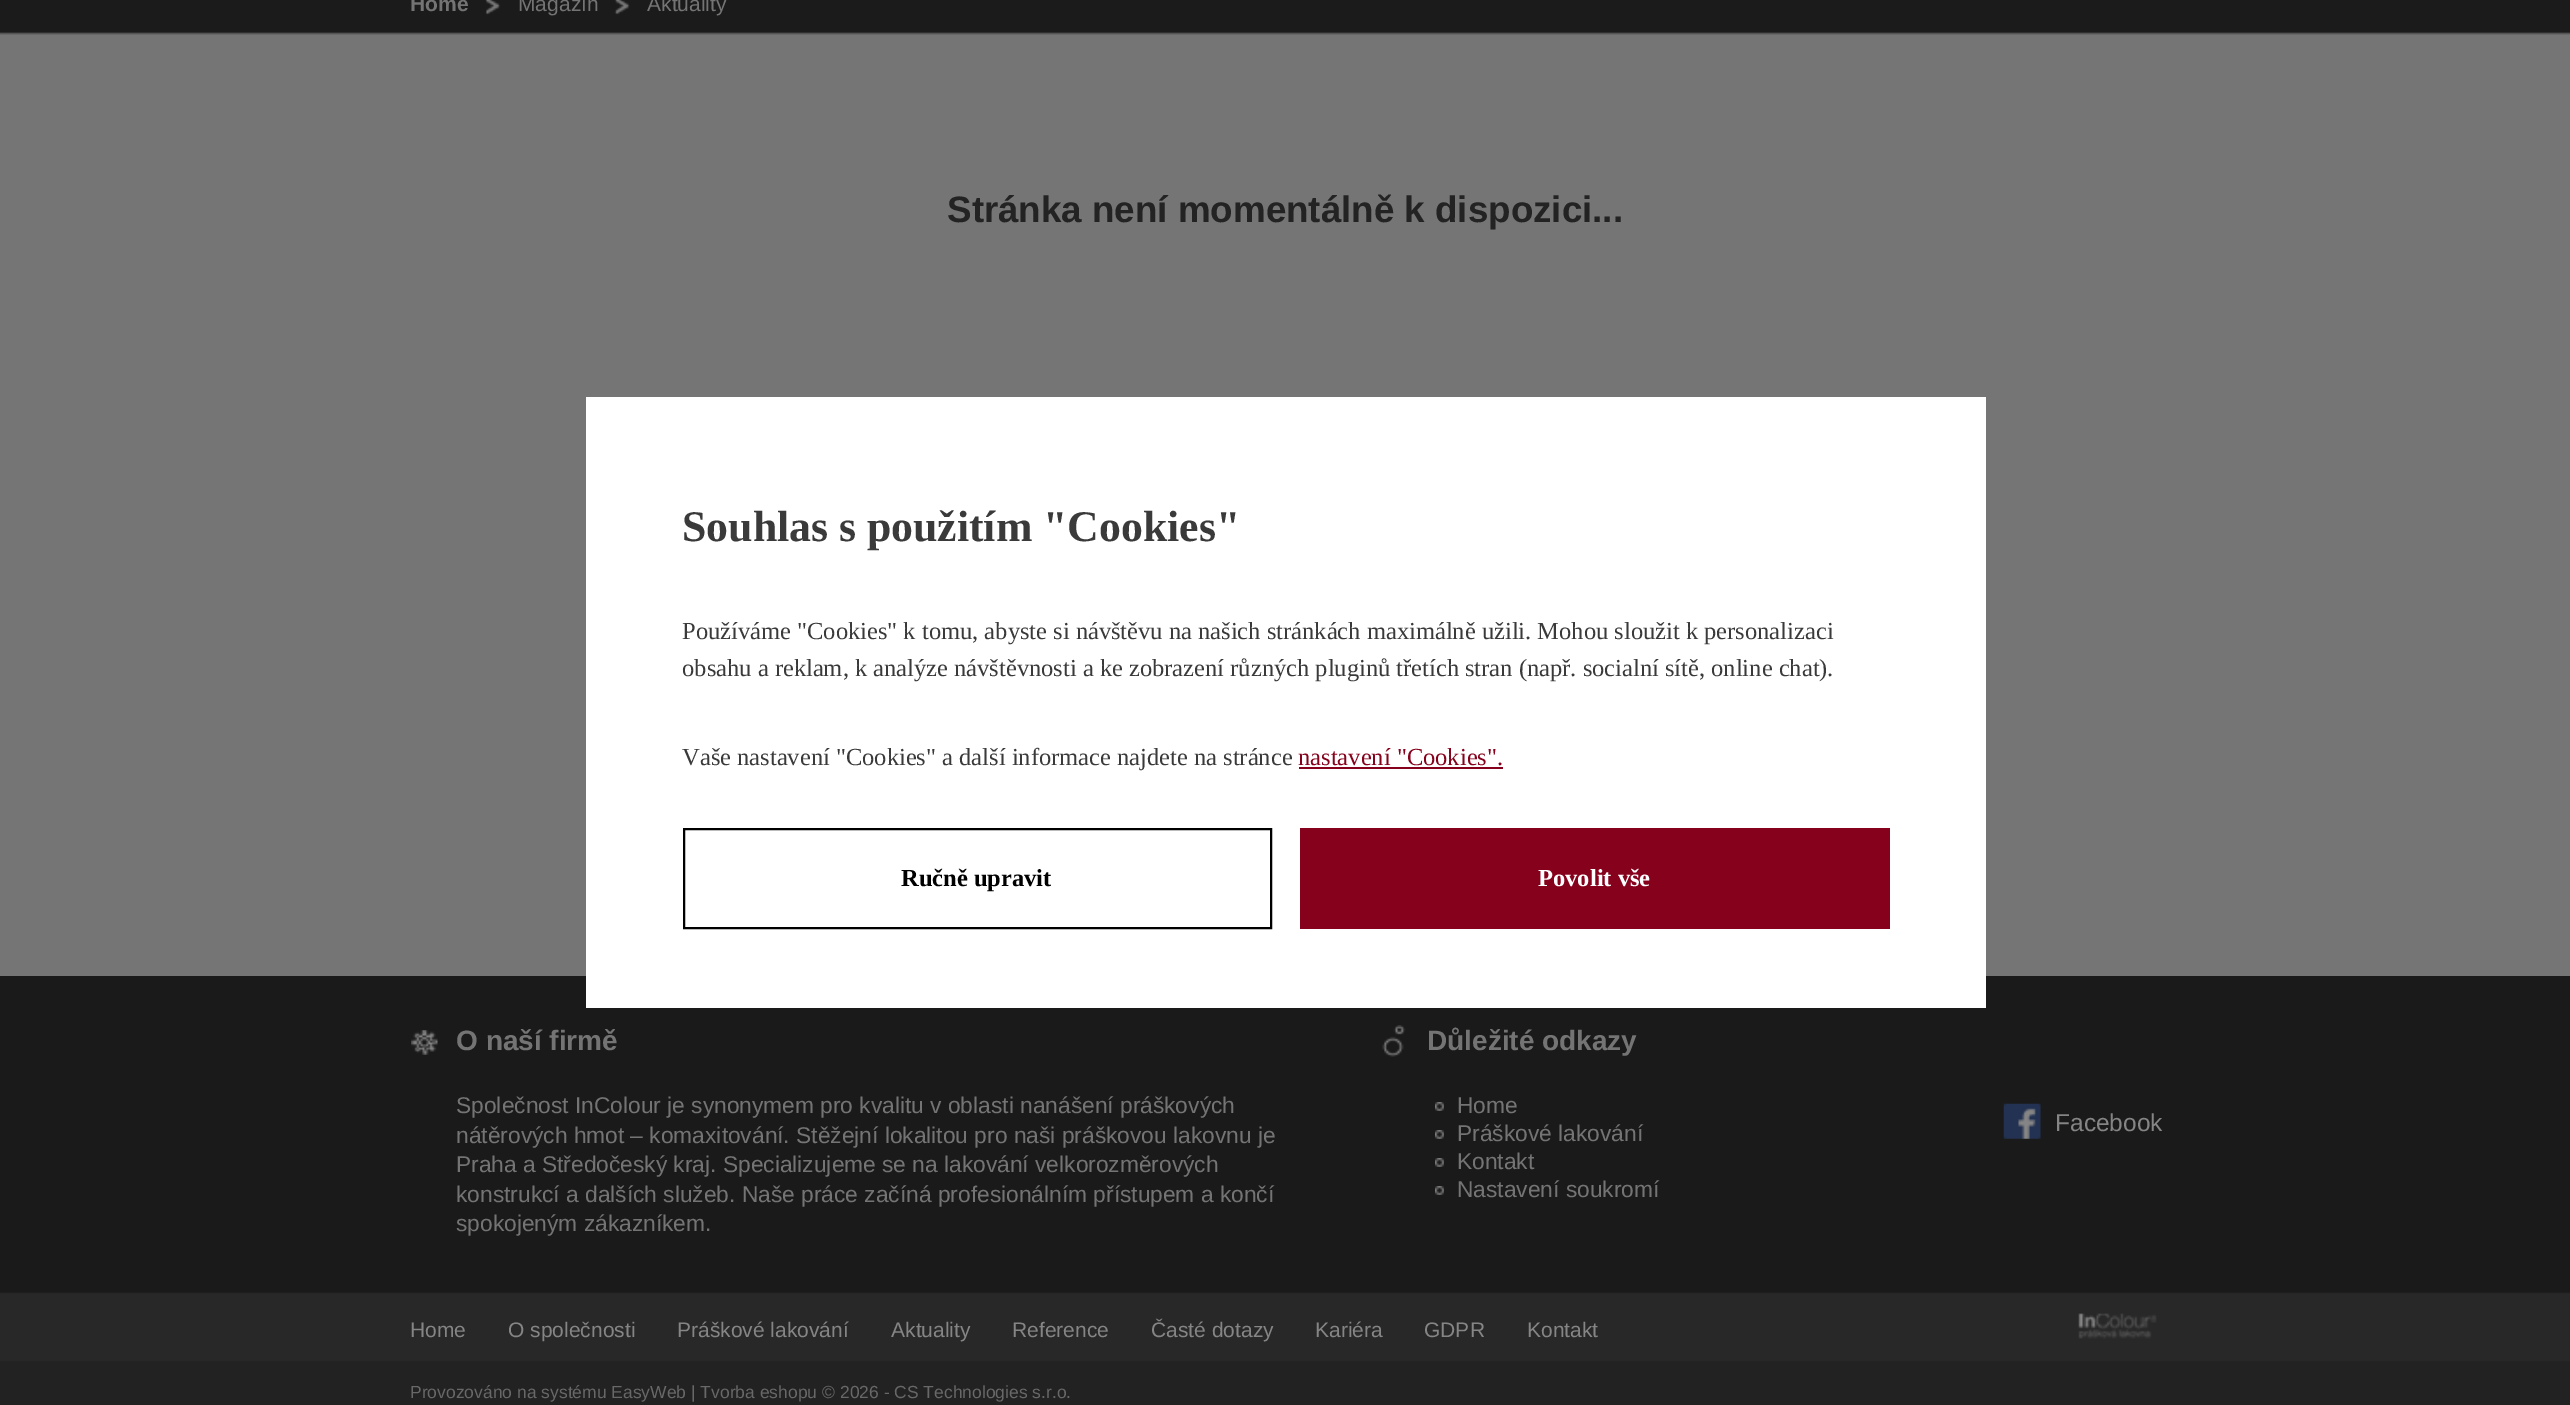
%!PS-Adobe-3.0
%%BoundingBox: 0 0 2570 1405
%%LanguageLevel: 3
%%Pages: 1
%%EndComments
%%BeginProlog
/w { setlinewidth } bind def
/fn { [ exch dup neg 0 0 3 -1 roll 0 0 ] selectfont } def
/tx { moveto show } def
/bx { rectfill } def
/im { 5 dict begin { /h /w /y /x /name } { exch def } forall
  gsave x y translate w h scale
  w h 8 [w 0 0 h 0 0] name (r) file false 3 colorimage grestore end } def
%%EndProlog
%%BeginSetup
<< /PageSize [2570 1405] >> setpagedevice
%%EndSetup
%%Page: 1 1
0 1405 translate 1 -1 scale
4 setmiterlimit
0.459 setgray
0 0 2570 1405 bx
(image0.raw) 0 0 2570 35 im
(image1.raw) 485 0 16 15 im
/LiberationSans-Bold 21 fn
0.455 setgray
(Home) 410 11 tx
(image2.raw) 614 0 16 15 im
/LiberationSans-Regular 21 fn
(Magazín) 518 11 tx
(Aktuality) 647 11 tx
/LiberationSans-Bold 36.75 fn
0.137 setgray
(Stránka není momentálně k dispozici...) 947 222 tx
(image3.raw) 0 976 2570 429 im
(image4.raw) 411 1030 27 25 im
/LiberationSans-Bold 28 fn
0.455 setgray
(O naší firmě) 456 1050 tx
/LiberationSans-Regular 22.75 fn
(Společnost InColour je synonymem pro kvalitu v oblasti nanášení práškových) 456 1113 tx
(nátěrových hmot – komaxitování. Stěžejní lokalitou pro naši práškovou lakovnu je) 456 1143 tx
(Praha a Středočeský kraj. Specializujeme se na lakování velkorozměrových) 456 1172 tx
(konstrukcí a dalších služeb. Naše práce začíná profesionálním přístupem a končí) 456 1202 tx
(spokojeným zákazníkem.) 456 1231 tx
(image5.raw) 1382 1025 24 32 im
/LiberationSans-Bold 28 fn
(Důležité odkazy) 1427 1050 tx
(image6.raw) 1435 1102 9 9 im
/LiberationSans-Regular 22.75 fn
(Home) 1457 1113 tx
(image6.raw) 1435 1130 9 9 im
(Práškové lakování) 1457 1141 tx
(image6.raw) 1435 1158 9 9 im
(Kontakt) 1457 1169 tx
(image6.raw) 1435 1186 9 9 im
(Nastavení soukromí) 1457 1197 tx
(image7.raw) 2003 1103 38 36 im
/LiberationSans-Regular 24.5 fn
0.522 setgray
(Facebook) 2055 1131 tx
/LiberationSans-Regular 21 fn
(Home) 410 1337 tx
(O společnosti) 508 1337 tx
(Práškové lakování) 677 1337 tx
(Aktuality) 891 1337 tx
(Reference) 1012 1337 tx
(Časté dotazy) 1151 1337 tx
(Kariéra) 1315 1337 tx
(GDPR) 1424 1337 tx
(Kontakt) 1527 1337 tx
(image8.raw) 2078 1313 79 26 im
/LiberationSans-Regular 17.5 fn
0.408 setgray
(Provozováno na systému EasyWeb | Tvorba eshopu © 2026 - CS Technologies s.r.o.) 410 1398 tx
1 setgray
586 397 1400 611 bx
/LiberationSerif-Bold 43.75 fn
0.227 setgray
(Souhlas s použitím "Cookies") 682 541 tx
/LiberationSerif-Regular 24.5 fn
(Používáme "Cookies" k tomu, abyste si návštěvu na našich stránkách maximálně užili. Mohou sloužit k personalizaci) 682 639 tx
(obsahu a reklam, k analýze návštěvnosti a ke zobrazení různých pluginů třetích stran \(např. socialní sítě, online chat\).) 682 676 tx
(Vaše nastavení "Cookies" a další informace najdete na stránce) 682 765 tx
0.525 0.004 0.106 setrgbcolor
(nastavení "Cookies".) 1298 765 tx
1299 767 204 2 bx
0 setgray
2 w
684 829 587 99 rectstroke
/LiberationSerif-Bold 24.5 fn
(Ručně upravit) 901 886 tx
0.525 0.004 0.106 setrgbcolor
1300 828 590 101 bx
1 setgray
(Povolit vše) 1538 886 tx
showpage
%%EOF
